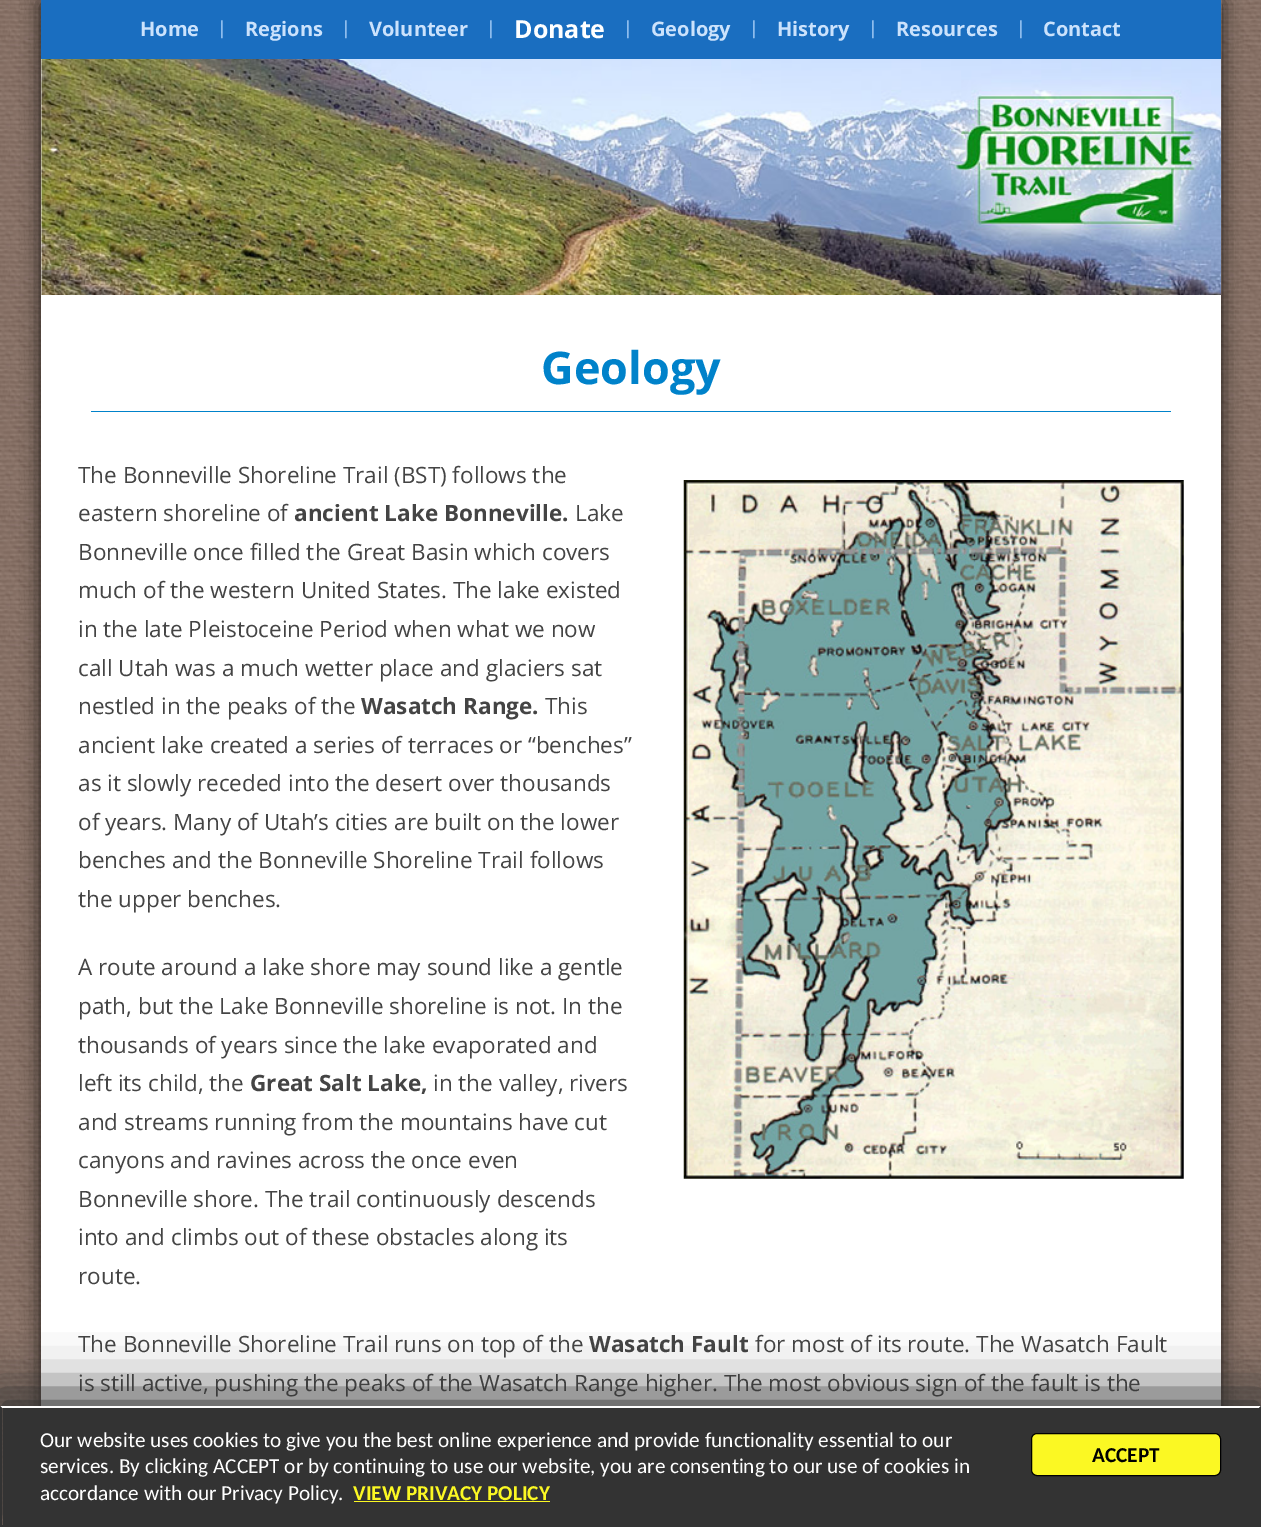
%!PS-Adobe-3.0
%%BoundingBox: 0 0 1261 1527
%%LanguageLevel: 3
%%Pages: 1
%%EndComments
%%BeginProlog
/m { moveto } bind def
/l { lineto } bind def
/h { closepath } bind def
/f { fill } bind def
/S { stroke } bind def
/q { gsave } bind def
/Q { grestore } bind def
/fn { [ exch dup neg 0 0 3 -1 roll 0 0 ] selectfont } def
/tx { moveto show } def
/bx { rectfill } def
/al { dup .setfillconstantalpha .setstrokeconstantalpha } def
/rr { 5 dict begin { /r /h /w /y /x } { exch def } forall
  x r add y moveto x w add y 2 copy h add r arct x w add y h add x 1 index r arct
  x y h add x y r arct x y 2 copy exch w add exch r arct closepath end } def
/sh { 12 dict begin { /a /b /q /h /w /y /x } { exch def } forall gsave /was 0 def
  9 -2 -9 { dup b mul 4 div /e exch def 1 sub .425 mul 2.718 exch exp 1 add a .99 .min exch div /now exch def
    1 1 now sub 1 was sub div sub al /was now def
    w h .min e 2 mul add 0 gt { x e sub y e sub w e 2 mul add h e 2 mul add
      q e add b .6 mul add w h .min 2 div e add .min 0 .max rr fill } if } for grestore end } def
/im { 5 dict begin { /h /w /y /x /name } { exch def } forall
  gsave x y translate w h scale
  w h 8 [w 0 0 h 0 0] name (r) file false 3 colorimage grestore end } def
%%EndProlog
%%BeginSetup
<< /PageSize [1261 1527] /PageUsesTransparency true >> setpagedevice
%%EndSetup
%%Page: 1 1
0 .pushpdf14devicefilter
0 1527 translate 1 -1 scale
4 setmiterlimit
1 setgray
0 0 1261 1527 bx
(image0.raw) 0 0 1261 1525 im
0 setgray
41 3 1180 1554 0 10 0.8 sh
1 setgray
41 59 1180 1347 bx
(image1.raw) 41 0 1181 295 im
0.102 0.431 0.753 setrgbcolor
41 0 1180 59 bx
/OpenSans-Bold 20 fn
0.796 0.886 0.988 setrgbcolor
(Home) 140 36 tx
/OpenSans-Regular 18 fn
0.718 0.847 0.992 setrgbcolor
(|) 217 34 tx
/OpenSans-Bold 20 fn
0.796 0.886 0.988 setrgbcolor
(Regions) 245 36 tx
/OpenSans-Regular 18 fn
0.718 0.847 0.992 setrgbcolor
(|) 341 34 tx
/OpenSans-Bold 20 fn
0.796 0.886 0.988 setrgbcolor
(Volunteer) 369 36 tx
/OpenSans-Regular 18 fn
0.718 0.847 0.992 setrgbcolor
(|) 486 34 tx
/OpenSans-Bold 25 fn
1 setgray
(Donate) 514 38 tx
/OpenSans-Regular 18 fn
0.718 0.847 0.992 setrgbcolor
(|) 623 34 tx
/OpenSans-Bold 20 fn
0.796 0.886 0.988 setrgbcolor
(Geology) 651 36 tx
/OpenSans-Regular 18 fn
0.718 0.847 0.992 setrgbcolor
(|) 749 34 tx
/OpenSans-Bold 20 fn
0.796 0.886 0.988 setrgbcolor
(History) 777 36 tx
/OpenSans-Regular 18 fn
0.718 0.847 0.992 setrgbcolor
(|) 868 34 tx
/OpenSans-Bold 20 fn
0.796 0.886 0.988 setrgbcolor
(Resources) 896 36 tx
/OpenSans-Regular 18 fn
0.718 0.847 0.992 setrgbcolor
(|) 1016 34 tx
/OpenSans-Bold 20 fn
0.796 0.886 0.988 setrgbcolor
(Contact) 1043 36 tx
0 0.51 0.792 setrgbcolor
91 411 1080 1 bx
/OpenSans-Bold 45 fn
(Geology) 541 384 tx
/OpenSans-Regular 22.5 fn
0.267 setgray
(The Bonneville Shoreline Trail \(BST\) follows the) 78 483 tx
(eastern shoreline of) 78 521 tx
/OpenSans-Bold 22.5 fn
(ancient Lake Bonneville.) 294 521 tx
/OpenSans-Regular 22.5 fn
(Lake) 575 521 tx
(Bonneville once filled the Great Basin which covers) 78 560 tx
(much of the western United States. The lake existed) 78 598 tx
(in the late Pleistoceine Period when what we now) 78 637 tx
(call Utah was a much wetter place and glaciers sat) 78 676 tx
(nestled in the peaks of the) 78 714 tx
/OpenSans-Bold 22.5 fn
(Wasatch Range.) 361 714 tx
/OpenSans-Regular 22.5 fn
(This) 545 714 tx
(ancient lake created a series of terraces or “benches”) 78 753 tx
(as it slowly receded into the desert over thousands) 78 791 tx
(of years. Many of Utah’s cities are built on the lower) 78 830 tx
(benches and the Bonneville Shoreline Trail follows) 78 868 tx
(the upper benches.) 78 907 tx
(image2.raw) 683 480 501 699 im
(A route around a lake shore may sound like a gentle) 78 975 tx
(path, but the Lake Bonneville shoreline is not. In the) 78 1014 tx
(thousands of years since the lake evaporated and) 78 1053 tx
(left its child, the) 78 1091 tx
/OpenSans-Bold 22.5 fn
(Great Salt Lake,) 250 1091 tx
/OpenSans-Regular 22.5 fn
(in the valley, rivers) 433 1091 tx
(and streams running from the mountains have cut) 78 1130 tx
(canyons and ravines across the once even) 78 1168 tx
(Bonneville shore. The trail continuously descends) 78 1207 tx
(into and climbs out of these obstacles along its) 78 1245 tx
(route.) 78 1284 tx
(The Bonneville Shoreline Trail runs on top of the) 78 1352 tx
/OpenSans-Bold 22.5 fn
(Wasatch Fault) 589 1352 tx
/OpenSans-Regular 22.5 fn
(for most of its route. The Wasatch Fault) 755 1352 tx
(is still active, pushing the peaks of the Wasatch Range higher. The most obvious sign of the fault is the) 78 1391 tx
0.2 setgray
-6 1393 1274 133 0 27 1 sh
3 1408 1256 117 bx
1 setgray
0 1406 m 1261 1406 l 1259 1408 l 2 1408 l h f
0.2 setgray
1261 1406 m 1261 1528 l 1259 1525 l 1259 1408 l h f
0 1525 1261 2 bx
0 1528 m 0 1406 l 2 1408 l 2 1525 l h f
/Carlito-Regular 21.25 fn
1 setgray
(Our website uses cookies to give you the best online experience and provide functionality essential to our) 40 1447 tx
(services. By clicking ACCEPT or by continuing to use our website, you are consenting to our use of cookies in) 40 1473 tx
(accordance with our Privacy Policy.) 40 1500 tx
/Carlito-Bold 21.25 fn
0.984 0.973 0.137 setrgbcolor
(VIEW PRIVACY POLICY) 353 1500 tx
354 1501 196 1 bx
1031.5 1433.5 189 42 5.5 rr q f Q
0 setgray
S
(ACCEPT) 1092 1462 tx
.poppdf14devicefilter showpage
%%EOF
